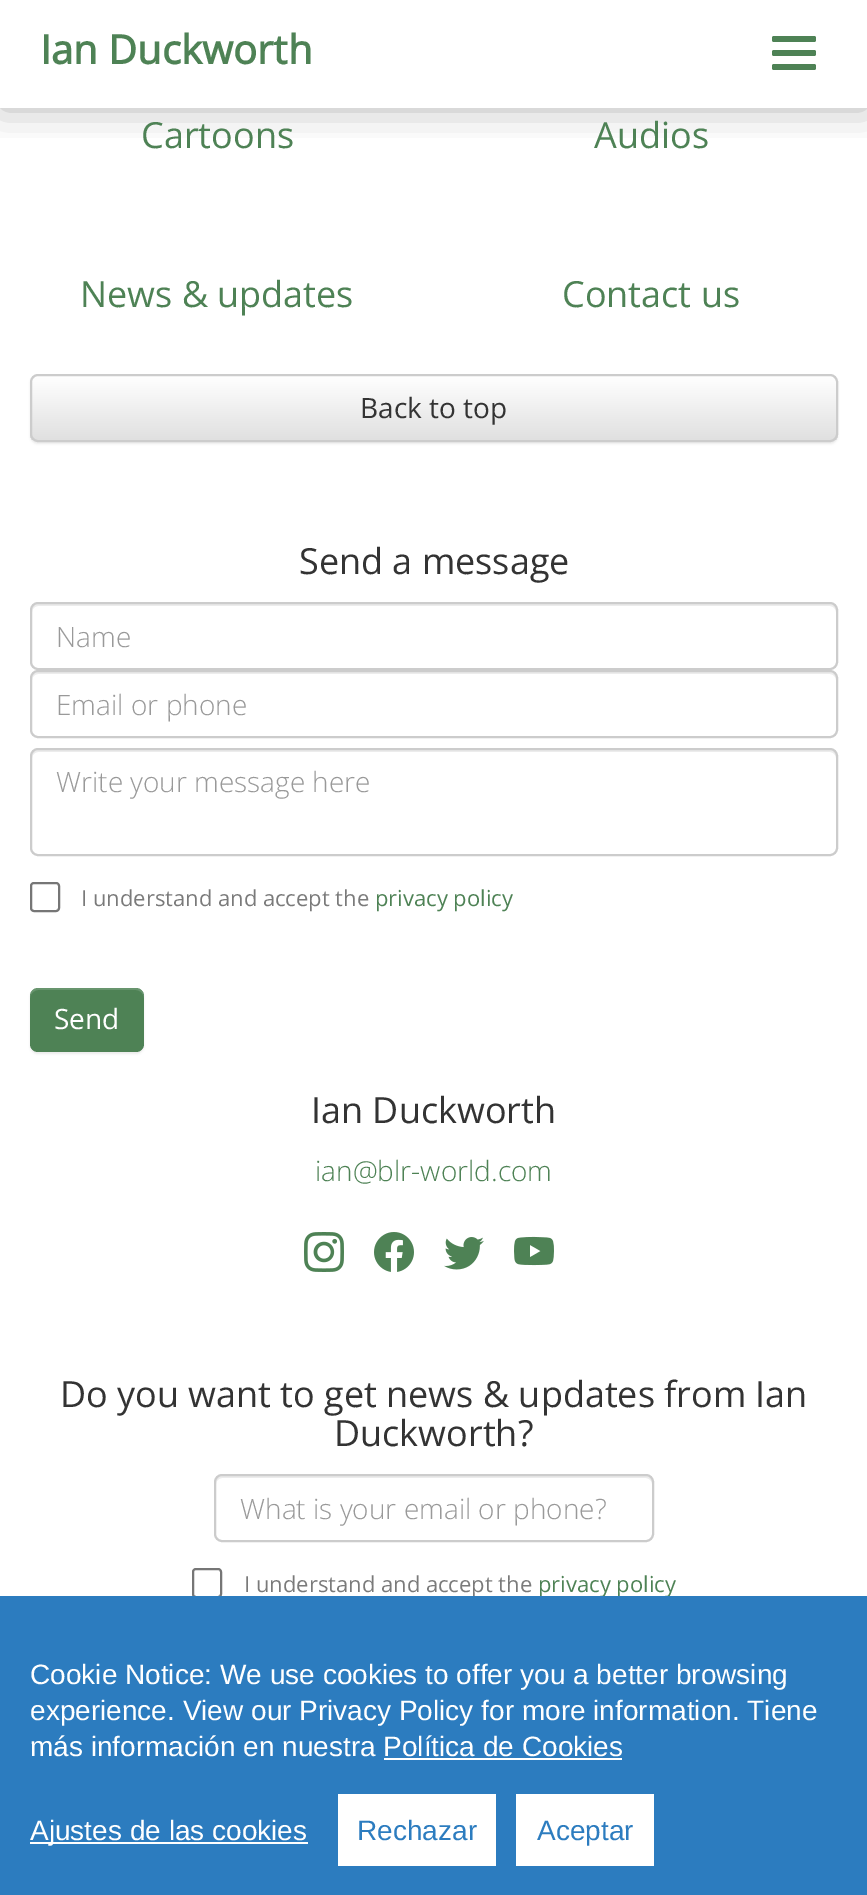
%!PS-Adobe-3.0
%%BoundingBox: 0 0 867 1895
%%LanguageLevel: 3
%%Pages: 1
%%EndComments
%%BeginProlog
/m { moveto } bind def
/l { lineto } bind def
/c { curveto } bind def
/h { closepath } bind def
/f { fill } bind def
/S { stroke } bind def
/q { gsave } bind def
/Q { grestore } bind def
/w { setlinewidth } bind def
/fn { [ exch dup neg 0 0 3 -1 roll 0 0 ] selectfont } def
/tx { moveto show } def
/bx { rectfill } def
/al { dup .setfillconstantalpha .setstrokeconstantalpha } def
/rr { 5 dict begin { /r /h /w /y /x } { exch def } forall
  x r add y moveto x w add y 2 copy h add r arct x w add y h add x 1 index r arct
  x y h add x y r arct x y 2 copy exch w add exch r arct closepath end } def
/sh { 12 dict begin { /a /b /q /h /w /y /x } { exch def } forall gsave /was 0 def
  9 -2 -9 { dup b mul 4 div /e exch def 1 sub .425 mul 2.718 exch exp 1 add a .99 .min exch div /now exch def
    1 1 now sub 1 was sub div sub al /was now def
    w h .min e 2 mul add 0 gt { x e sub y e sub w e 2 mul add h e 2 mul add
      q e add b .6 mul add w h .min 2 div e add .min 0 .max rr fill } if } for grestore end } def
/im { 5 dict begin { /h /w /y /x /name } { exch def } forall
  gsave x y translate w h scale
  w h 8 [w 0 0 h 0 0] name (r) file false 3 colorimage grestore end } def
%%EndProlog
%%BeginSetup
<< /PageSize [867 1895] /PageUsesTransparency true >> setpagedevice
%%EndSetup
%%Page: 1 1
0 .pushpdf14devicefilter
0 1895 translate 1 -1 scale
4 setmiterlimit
1 setgray
0 0 867 1895 bx
q
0 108 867 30 rectclip
0 setgray
0 0 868 108 0 20 0.3 sh
Q
/OpenSans-Bold 40 fn
0.306 0.51 0.333 setrgbcolor
(Ian Duckworth) 40 64 tx
772 36 44 6 2 rr f
772 50 44 6 2 rr f
772 64 44 6 2 rr f
/OpenSans-Regular 36 fn
(Cartoons) 141 148 tx
(Audios) 594 148 tx
(News & updates) 80 307 tx
(Contact us) 562 307 tx
0 setgray
30 376 808 68 8 1 0.07 sh
q
30 374 808 68 8 rr clip newpath
q 30 376 m 838 376 l 838 440 l 30 440 l h clip newpath
<< /ShadingType 2 /ColorSpace /DeviceRGB /Coords [434 376 434 440] /Extend [true true] /Function << /FunctionType 2 /Domain [0 1] /C0 [1 1 1] /C1 [0.878 0.878 0.878] /N 1 >> >> shfill Q
Q
0.8 setgray
2 w
31 375 806 66 7 rr S
/OpenSans-Regular 28 fn
0.2 setgray
(Back to top) 360 418 tx
/OpenSans-Regular 36 fn
(Send a message) 299 574 tx
0.925 setgray
38 606 m 830 606 l 833 606 836 609 836 612 c 836 610 l 836 607 833 604 830 604 c 38 604 l 35 604 32 607 32 610 c 32 612 l 32 609 35 606 38 606 c h f
0.8 setgray
31 603 806 66 7 rr S
/OpenSans-Light 28 fn
0.6 setgray
(Name) 56 647 tx
0.925 setgray
38 674 m 830 674 l 833 674 836 677 836 680 c 836 678 l 836 675 833 672 830 672 c 38 672 l 35 672 32 675 32 678 c 32 680 l 32 677 35 674 38 674 c h f
0.8 setgray
31 671 806 66 7 rr S
0.6 setgray
(Email or phone) 56 715 tx
0.925 setgray
38 752 m 830 752 l 833 752 836 755 836 758 c 836 756 l 836 753 833 750 830 750 c 38 750 l 35 750 32 753 32 756 c 32 758 l 32 755 35 752 38 752 c h f
0.8 setgray
31 749 806 106 7 rr S
0.6 setgray
(Write your message here) 56 792 tx
0.463 setgray
31 883 28 28 3 rr S
/OpenSans-Regular 22 fn
0.478 setgray
(I understand and accept the) 81 906 tx
0.306 0.51 0.333 setrgbcolor
(privacy policy) 375 906 tx
0 setgray
30 990 114 64 8 1 0.07 sh
0.306 0.51 0.333 setrgbcolor
30 988 114 64 8 rr f
0.15 al
1 setgray
38 990 m 136 990 l 140 990 144 994 144 998 c 144 984 130 988 120 988 c 54 988 l 44 988 30 984 30 998 c 30 994 34 990 38 990 c h f
/OpenSans-Regular 28 fn
1 al
(Send) 54 1029 tx
/OpenSans-Regular 36 fn
0.2 setgray
(Ian Duckworth) 311 1123 tx
/OpenSans-Light 28 fn
0.306 0.51 0.333 setrgbcolor
(ian@blr-world.com) 315 1181 tx
(image0.raw) 304 1232 40 40 im
(image1.raw) 374 1232 40 40 im
(image2.raw) 444 1237 40 33 im
(image3.raw) 514 1236 40 30 im
/OpenSans-Regular 36 fn
0.2 setgray
(Do you want to get news & updates from Ian) 60 1407 tx
(Duckworth?) 334 1446 tx
0.925 setgray
222 1478 m 646 1478 l 649 1478 652 1481 652 1484 c 652 1482 l 652 1479 649 1476 646 1476 c 222 1476 l 219 1476 216 1479 216 1482 c 216 1484 l 216 1481 219 1478 222 1478 c h f
0.8 setgray
215 1475 438 66 7 rr S
/OpenSans-Light 28 fn
0.6 setgray
(What is your email or phone?) 240 1519 tx
0.463 setgray
193 1569 28 28 3 rr S
/OpenSans-Regular 22 fn
0.478 setgray
(I understand and accept the) 244 1592 tx
0.306 0.51 0.333 setrgbcolor
(privacy policy) 538 1592 tx
0.173 0.486 0.749 setrgbcolor
0 1596 867 299 bx
/LiberationSans-Regular 28 fn
1 setgray
(Cookie Notice: We use cookies to offer you a better browsing) 30 1684 tx
(experience. View our Privacy Policy for more information. Tiene) 30 1720 tx
(más información en nuestra Política de Cookies) 30 1756 tx
384 1758 238 2 bx
30 1842 278 2 bx
(Ajustes de las cookies) 30 1840 tx
338 1794 158 72 bx
0.173 0.486 0.749 setrgbcolor
(Rechazar) 357 1840 tx
1 setgray
516 1794 138 72 bx
0.173 0.486 0.749 setrgbcolor
(Aceptar) 537 1840 tx
.poppdf14devicefilter showpage
%%EOF
